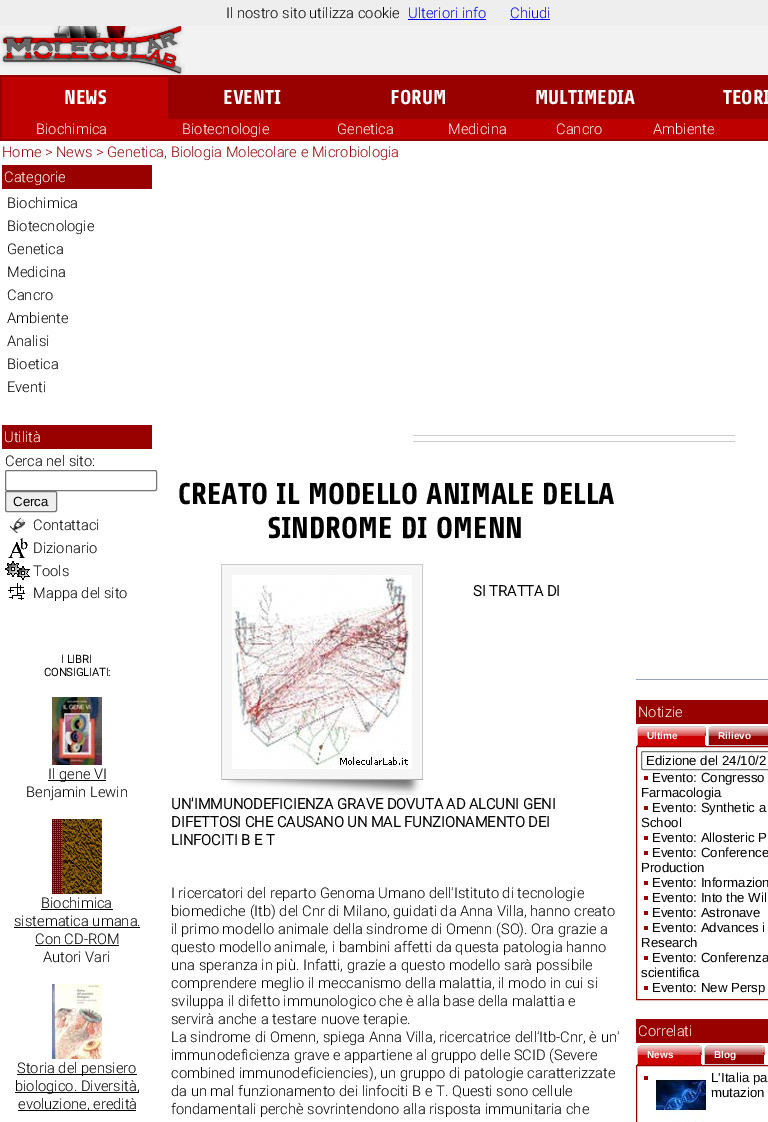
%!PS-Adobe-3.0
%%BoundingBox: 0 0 768 1122
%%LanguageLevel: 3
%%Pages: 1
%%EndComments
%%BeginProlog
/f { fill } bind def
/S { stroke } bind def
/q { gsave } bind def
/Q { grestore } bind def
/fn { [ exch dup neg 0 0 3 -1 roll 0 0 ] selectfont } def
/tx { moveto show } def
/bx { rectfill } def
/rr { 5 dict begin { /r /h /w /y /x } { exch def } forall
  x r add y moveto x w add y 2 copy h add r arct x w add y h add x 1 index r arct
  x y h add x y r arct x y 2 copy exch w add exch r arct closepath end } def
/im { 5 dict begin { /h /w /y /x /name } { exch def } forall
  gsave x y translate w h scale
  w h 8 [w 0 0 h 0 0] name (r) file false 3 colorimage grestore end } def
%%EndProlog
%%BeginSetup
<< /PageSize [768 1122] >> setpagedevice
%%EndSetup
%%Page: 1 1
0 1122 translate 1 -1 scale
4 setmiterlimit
1 setgray
0 0 768 1122 bx
0.933 setgray
0 0 768 26 bx
/Roboto-Light 14.7 fn
0 setgray
(Il nostro sito utilizza cookie) 226 18 tx
0 0 0.933 setrgbcolor
(Ulteriori info) 408 18 tx
408 19 78 1 bx
(Chiudi) 510 18 tx
510 19 40 1 bx
0.949 setgray
0 26 768 49 bx
(image0.raw) 0 26 185 49 im
0.6 0 0 setrgbcolor
0 75 768 66 bx
0.749 0 0 setrgbcolor
2 77 166 42 bx
/Share-Bold 20 fn
1 setgray
(NEWS) 64 104 tx
(EVENTI) 223 104 tx
(FORUM) 390 104 tx
(MULTIMEDIA) 535 104 tx
(TEORI) 723 104 tx
0.749 0 0 setrgbcolor
2 119 766 20 bx
/Roboto-Light 14.7 fn
1 setgray
(Biochimica) 36 134 tx
(Biotecnologie) 182 134 tx
(Genetica) 337 134 tx
(Medicina) 448 134 tx
(Cancro) 556 134 tx
(Ambiente) 653 134 tx
0.6 0 0 setrgbcolor
(Home > News > Genetica, Biologia Molecolare e Microbiologia) 2 157 tx
2 165 150 24 bx
1 setgray
(Categorie) 4 182 tx
0 setgray
(Biochimica) 7 208 tx
(Biotecnologie) 7 231 tx
(Genetica) 7 254 tx
(Medicina) 7 277 tx
(Cancro) 7 300 tx
(Ambiente) 7 323 tx
(Analisi) 7 346 tx
(Bioetica) 7 369 tx
(Eventi) 7 392 tx
0.6 0 0 setrgbcolor
2 425 150 24 bx
1 setgray
(Utilità) 4 442 tx
0 setgray
(Cerca nel sito:) 5 466 tx
0.463 setgray
5.5 470.5 151 20 1.5 rr S
0.937 setgray
5.5 491.5 51 20 1.5 rr q f Q
0.463 setgray
S
/LiberationSans-Regular 13.25 fn
0 setgray
(Cerca) 13 506 tx
(image1.raw) 10 518 15 15 im
/Roboto-Light 14.7 fn
(Contattaci) 33 530 tx
(image2.raw) 8 538 20 20 im
(Dizionario) 33 553 tx
(image3.raw) 5 561 25 19 im
(Tools) 33 576 tx
(image4.raw) 8 583 17 17 im
(Mappa del sito) 33 598 tx
/Roboto-Bold 11 fn
(I LIBRI) 61 663 tx
(CONSIGLIATI:) 44 676 tx
(image5.raw) 52 697 50 68 im
48 780 58 1 bx
/Roboto-Light 14.7 fn
(Il gene VI) 48 779 tx
(Benjamin Lewin) 26 797 tx
(image6.raw) 52 819 50 75 im
(Biochimica) 41 908 tx
41 909 72 1 bx
(sistematica umana.) 14 926 tx
14 927 126 1 bx
(Con CD-ROM) 35 944 tx
35 945 84 1 bx
(Autori Vari) 43 962 tx
(image7.raw) 52 984 50 75 im
17 1074 120 1 bx
(Storia del pensiero) 17 1073 tx
15 1092 124 1 bx
(biologico. Diversità,) 15 1091 tx
18 1110 118 1 bx
(evoluzione, eredità) 18 1109 tx
0.8 setgray
413 435 322 1 bx
413 441 322 1 bx
/Share-Bold 30 fn
0 setgray
(CREATO IL MODELLO ANIMALE DELLA) 178 504 tx
(SINDROME DI OMENN) 268 538 tx
(image8.raw) 226 780 196 15 im
0.965 setgray
222 565 200 214 bx
0.8 setgray
221 564 202 1 bx
422 564 1 216 bx
0.667 setgray
221 779 202 1 bx
0.8 setgray
221 564 1 216 bx
(image9.raw) 232 575 180 194 im
/Roboto-Bold 14.7 fn
0 setgray
(SI TRATTA DI) 473 596 tx
(UN'IMMUNODEFICIENZA GRAVE DOVUTA AD ALCUNI GENI) 171 809 tx
(DIFETTOSI CHE CAUSANO UN MAL FUNZIONAMENTO DEI) 171 827 tx
(LINFOCITI B E T) 171 845 tx
/Roboto-Light 14.7 fn
(I ricercatori del reparto Genoma Umano dell'Istituto di tecnologie) 171 898 tx
(biomediche \(Itb\) del Cnr di Milano, guidati da Anna Villa, hanno creato) 171 916 tx
(il primo modello animale della sindrome di Omenn \(SO\). Ora grazie a) 171 934 tx
(questo modello animale, i bambini affetti da questa patologia hanno) 171 952 tx
(una speranza in più. Infatti, grazie a questo modello sarà possibile) 171 970 tx
(comprendere meglio il meccanismo della malattia, il modo in cui si) 171 988 tx
(sviluppa il difetto immunologico che è alla base della malattia e) 171 1006 tx
(servirà anche a testare nuove terapie.) 171 1024 tx
(La sindrome di Omenn, spiega Anna Villa, ricercatrice dell'Itb-Cnr, è un') 171 1042 tx
(immunodeficienza grave e appartiene al gruppo delle SCID \(Severe) 171 1060 tx
(combined immunodeficiencies\), un gruppo di patologie caratterizzate) 171 1078 tx
(da un mal funzionamento dei linfociti B e T. Questi sono cellule) 171 1096 tx
(fondamentali perchè sovrintendono alla risposta immunitaria che) 171 1114 tx
0.58 0.639 0.769 setrgbcolor
636 679 132 1 bx
0.6 0 0 setrgbcolor
636 700 132 24 bx
1 setgray
(Notizie) 638 717 tx
(image10.raw) 637 726 68 19 im
0.8 0 0 setrgbcolor
636 745 70 1 bx
1 setgray
636 745 1 1 bx
/LiberationSans-Bold 10 fn
(Ultime) 647 739 tx
(image11.raw) 704 726 2 10 im
0.702 0 0 setrgbcolor
(.) 704 735 tx
(image12.raw) 708 726 60 19 im
0.8 setgray
707 745 61 1 bx
1 setgray
707 745 1 1 bx
(Rilievo) 718 739 tx
0.6 0 0 setrgbcolor
636.5 746.5 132 253 rectstroke
0.463 setgray
641.5 751.5 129 18 1.5 rr S
/LiberationSans-Regular 13.25 fn
0 setgray
(Edizione del 24/10/2) 646 765 tx
0.6 0 0 setrgbcolor
644 776 4 4 bx
0 setgray
(Evento: Congresso) 652 782 tx
(Farmacologia) 641 797 tx
0.6 0 0 setrgbcolor
644 806 4 4 bx
0 setgray
(Evento: Synthetic a) 652 812 tx
(School) 641 827 tx
0.6 0 0 setrgbcolor
644 836 4 4 bx
0 setgray
(Evento: Allosteric P) 652 842 tx
0.6 0 0 setrgbcolor
644 851 4 4 bx
0 setgray
(Evento: Conference) 652 857 tx
(Production) 641 872 tx
0.6 0 0 setrgbcolor
644 881 4 4 bx
0 setgray
(Evento: Informazion) 652 887 tx
0.6 0 0 setrgbcolor
644 896 4 4 bx
0 setgray
(Evento: Into the Wil) 652 902 tx
0.6 0 0 setrgbcolor
644 911 4 4 bx
0 setgray
(Evento: Astronave) 652 917 tx
0.6 0 0 setrgbcolor
644 926 4 4 bx
0 setgray
(Evento: Advances i) 652 932 tx
(Research) 641 947 tx
0.6 0 0 setrgbcolor
644 956 4 4 bx
0 setgray
(Evento: Conferenza) 652 962 tx
(scientifica) 641 977 tx
0.6 0 0 setrgbcolor
644 986 4 4 bx
0 setgray
(Evento: New Persp) 652 992 tx
0.6 0 0 setrgbcolor
636 1019 132 24 bx
/Roboto-Light 14.7 fn
1 setgray
(Correlati) 638 1036 tx
(image13.raw) 637 1045 64 19 im
0.8 0 0 setrgbcolor
636 1064 66 1 bx
1 setgray
636 1064 1 1 bx
/LiberationSans-Bold 10 fn
(News) 647 1058 tx
(image14.raw) 699 1045 3 10 im
0.702 0 0 setrgbcolor
(.) 699 1054 tx
(image12.raw) 704 1045 60 19 im
0.8 setgray
703 1064 62 1 bx
1 setgray
703 1064 1 1 bx
(Blog) 714 1058 tx
(image14.raw) 762 1045 3 10 im
0.702 0 0 setrgbcolor
(.) 762 1054 tx
0.6 0 0 setrgbcolor
636.5 1065.5 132 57 rectstroke
644 1076 4 4 bx
(image15.raw) 656 1070 50 48 im
/LiberationSans-Regular 13.25 fn
0 setgray
(L'Italia pa) 711 1082 tx
(mutazion) 711 1097 tx
(image16.raw) 672 1120 32 2 im
showpage
%%EOF
